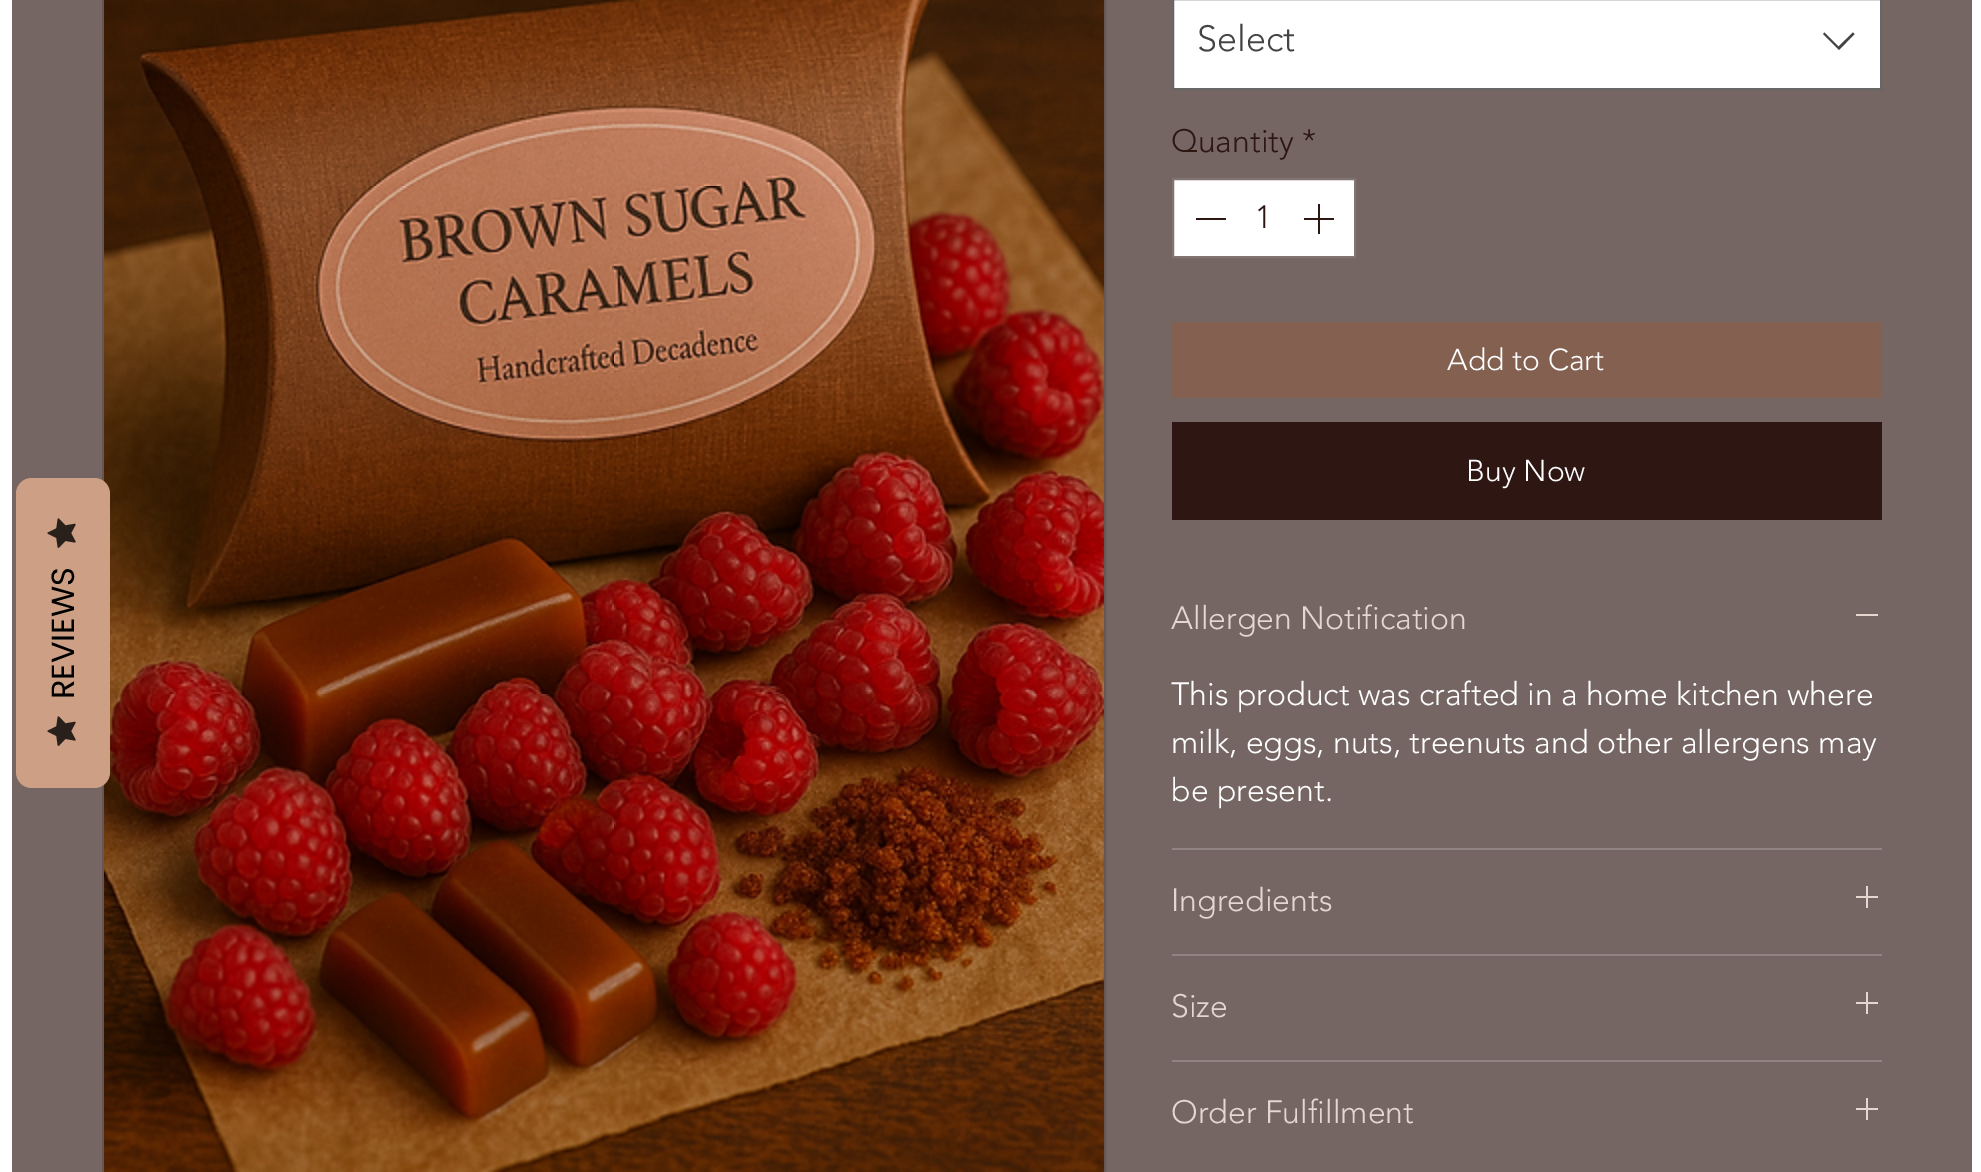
%!PS-Adobe-3.0
%%BoundingBox: 0 0 1981 1172
%%LanguageLevel: 3
%%Pages: 1
%%EndComments
%%BeginProlog
/m { moveto } bind def
/l { lineto } bind def
/c { curveto } bind def
/h { closepath } bind def
/f { fill } bind def
/S { stroke } bind def
/q { gsave } bind def
/Q { grestore } bind def
/w { setlinewidth } bind def
/fn { [ exch dup neg 0 0 3 -1 roll 0 0 ] selectfont } def
/tx { moveto show } def
/bx { rectfill } def
/im { 5 dict begin { /h /w /y /x /name } { exch def } forall
  gsave x y translate w h scale
  w h 8 [w 0 0 h 0 0] name (r) file false 3 colorimage grestore end } def
%%EndProlog
%%BeginSetup
<< /PageSize [1981 1172] >> setpagedevice
%%EndSetup
%%Page: 1 1
0 1172 translate 1 -1 scale
4 setmiterlimit
1 setgray
0 0 1981 1172 bx
0.459 0.4 0.392 setrgbcolor
12 0 1960 1172 bx
0.404 0.337 0.329 setrgbcolor
2 w
103 -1 1002 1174 rectstroke
(image1.raw) 104 0 1000 1172 im
0.804 0.627 0.525 setrgbcolor
16 772 m 16 494 l 16 485 23 478 32 478 c 94 478 l 103 478 110 485 110 494 c 110 772 l 110 781 103 788 94 788 c 32 788 l 23 788 16 781 16 772 c h f
(image0.raw) 47 518 29 30 im
/Poppins-Regular 32 fn
0 setgray
q 74 699 translate -90 rotate 0 0 m (REVIEWS) show Q
(image0.raw) 47 716 29 30 im
1 setgray
1173 -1 m 1881 -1 l 1881 89 l 1173 89 l h q f Q
0.4 setgray
S
/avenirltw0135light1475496-Light 36 fn
0.267 setgray
(Select) 1197 51 tx
1853 32.5 m 1854.5 34 l 1839 50 l 1823 34 l 1824.5 32.5 l 1838.5 46.5 l h eofill
/avenirltw0135light1475496-Light 32 fn
0.18 0.09 0.075 setrgbcolor
(Quantity *) 1171 152 tx
1 setgray
1173 179 m 1355 179 l 1355 257 l 1173 257 l h q f Q
0.51 0.455 0.443 setrgbcolor
S
0.18 0.09 0.075 setrgbcolor
1196 218 30 2 bx
(1) 1255 228 tx
(image2.raw) 1304 204 30 30 im
0.514 0.376 0.314 setrgbcolor
1172 322 710 76 bx
/avenirltw0135light1475496-Light 30 fn
1 setgray
(Add to Cart) 1447 370 tx
0.18 0.09 0.075 setrgbcolor
1172 422 710 98 bx
1 setgray
(Buy Now) 1466 481 tx
0.569 0.522 0.514 setrgbcolor
1172 848 710 2 bx
/avenirltw0135light1475496-Light 32 fn
0.898 0.839 0.816 setrgbcolor
(Allergen Notification) 1171 629 tx
1856 614 22 2 bx
1 setgray
(This product was crafted in a home kitchen where) 1171 705 tx
(milk, eggs, nuts, treenuts and other allergens may) 1171 753 tx
(be present.) 1171 801 tx
0.569 0.522 0.514 setrgbcolor
1172 954 710 2 bx
0.898 0.839 0.816 setrgbcolor
(Ingredients) 1171 911 tx
(image3.raw) 1856 886 22 22 im
0.569 0.522 0.514 setrgbcolor
1172 1060 710 2 bx
0.898 0.839 0.816 setrgbcolor
(Size) 1171 1017 tx
(image3.raw) 1856 992 22 22 im
(Order Fulfillment) 1171 1123 tx
(image3.raw) 1856 1098 22 22 im
showpage
%%EOF
